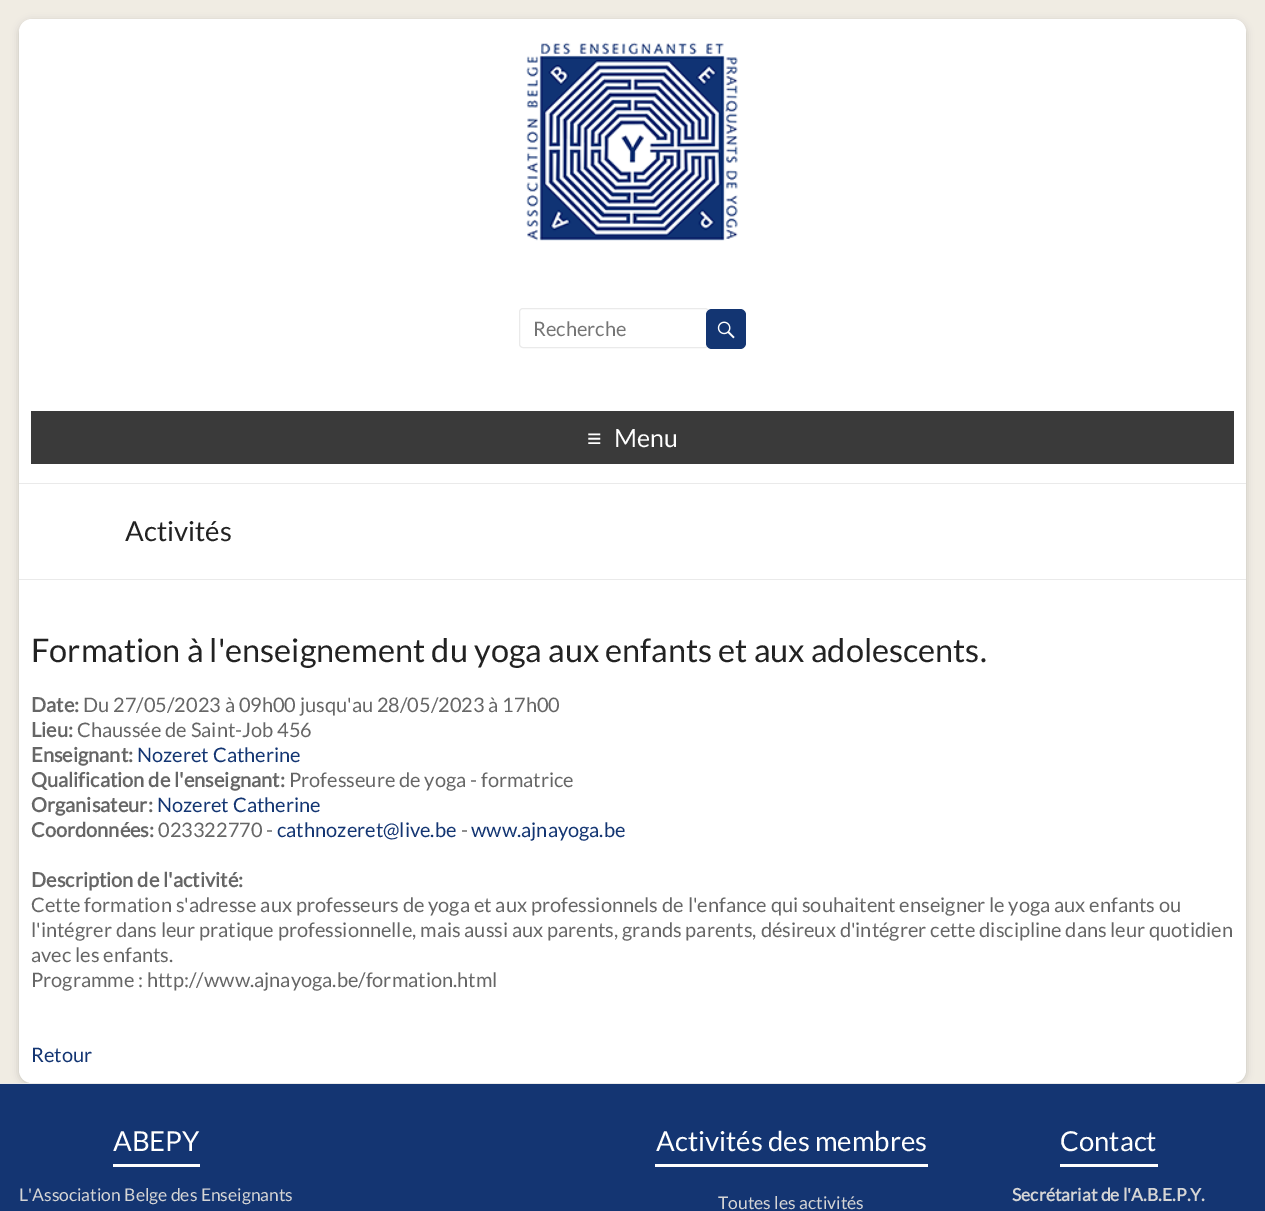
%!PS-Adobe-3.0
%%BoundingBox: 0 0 1265 1211
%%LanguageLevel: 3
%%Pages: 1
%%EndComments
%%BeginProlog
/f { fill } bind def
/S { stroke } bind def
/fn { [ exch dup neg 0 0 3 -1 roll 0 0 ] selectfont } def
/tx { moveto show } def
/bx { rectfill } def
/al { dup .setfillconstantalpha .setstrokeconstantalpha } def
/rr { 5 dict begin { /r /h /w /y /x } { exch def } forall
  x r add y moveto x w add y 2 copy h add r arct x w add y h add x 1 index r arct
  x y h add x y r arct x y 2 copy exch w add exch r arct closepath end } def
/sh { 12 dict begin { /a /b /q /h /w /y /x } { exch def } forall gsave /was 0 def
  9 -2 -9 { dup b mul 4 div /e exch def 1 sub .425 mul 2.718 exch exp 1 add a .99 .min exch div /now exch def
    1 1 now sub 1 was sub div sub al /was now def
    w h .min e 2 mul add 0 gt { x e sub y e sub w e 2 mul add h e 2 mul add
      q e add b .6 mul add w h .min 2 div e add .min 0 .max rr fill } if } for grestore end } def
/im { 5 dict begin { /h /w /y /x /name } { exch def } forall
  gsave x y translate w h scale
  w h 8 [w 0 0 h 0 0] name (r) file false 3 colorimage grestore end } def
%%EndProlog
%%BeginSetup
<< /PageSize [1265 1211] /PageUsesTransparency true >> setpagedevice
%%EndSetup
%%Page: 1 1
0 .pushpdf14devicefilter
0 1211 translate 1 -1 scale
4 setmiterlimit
0.941 0.925 0.89 setrgbcolor
0 0 1265 1211 bx
0.392 setgray
19 21 1227 1064 13 4 0.3 sh
1 setgray
19 19 1227 1064 13 rr f
0.918 setgray
19 483 1227 1 bx
(image0.raw) 526 42 212 199 im
519.5 308.5 189 39 3.5 rr S
/Lato-Regular 20 fn
0.459 setgray
(Recherche) 533 336 tx
0.075 0.208 0.447 setrgbcolor
706 309 40 40 6 rr f
(image1.raw) 717 321 18 18 im
0.227 setgray
31 411 1203 53 bx
/LiberationSans-Regular 25 fn
1 setgray
(≡) 587 447 tx
/Lato-Regular 25 fn
(Menu) 614 447 tx
0.918 setgray
19 579 1227 1 bx
/Lato-Regular 27.5 fn
0.133 setgray
(Activités) 125 541 tx
/Lato-Regular 32.5 fn
(Formation à l'enseignement du yoga aux enfants et aux adolescents.) 31 662 tx
/Lato-Bold 20 fn
0.4 setgray
(Date:) 31 712 tx
/Lato-Regular 20 fn
(Du 27/05/2023 à 09h00 jusqu'au 28/05/2023 à 17h00) 83 712 tx
/Lato-Bold 20 fn
(Lieu:) 31 737 tx
/Lato-Regular 20 fn
(Chaussée de Saint-Job 456) 77 737 tx
/Lato-Bold 20 fn
(Enseignant:) 31 762 tx
/Lato-Regular 20 fn
0.075 0.208 0.447 setrgbcolor
(Nozeret Catherine) 137 762 tx
/Lato-Bold 20 fn
0.4 setgray
(Qualification de l'enseignant:) 31 787 tx
/Lato-Regular 20 fn
(Professeure de yoga - formatrice) 289 787 tx
/Lato-Bold 20 fn
(Organisateur:) 31 812 tx
/Lato-Regular 20 fn
0.075 0.208 0.447 setrgbcolor
(Nozeret Catherine) 157 812 tx
/Lato-Bold 20 fn
0.4 setgray
(Coordonnées:) 31 837 tx
/Lato-Regular 20 fn
(023322770 -) 158 837 tx
0.075 0.208 0.447 setrgbcolor
(cathnozeret@live.be) 277 837 tx
0.4 setgray
(-) 461 837 tx
0.075 0.208 0.447 setrgbcolor
(www.ajnayoga.be) 471 837 tx
/Lato-Bold 20 fn
0.4 setgray
(Description de l'activité:) 31 887 tx
/Lato-Regular 20 fn
(Cette formation s'adresse aux professeurs de yoga et aux professionnels de l'enfance qui souhaitent enseigner le yoga aux enfants ou) 31 912 tx
(l'intégrer dans leur pratique professionnelle, mais aussi aux parents, grands parents, désireux d'intégrer cette discipline dans leur quotidien) 31 937 tx
(avec les enfants.) 31 962 tx
(Programme : http://www.ajnayoga.be/formation.html) 31 987 tx
0.075 0.208 0.447 setrgbcolor
(Retour) 31 1062 tx
0.078 0.208 0.447 setrgbcolor
0 1084 1265 127 bx
0.918 setgray
0 1083 1265 1 bx
/Lato-Regular 27.5 fn
1 setgray
(ABEPY) 113 1151 tx
113 1164 87 3 bx
/Lato-Regular 17.5 fn
0.835 setgray
(L'Association Belge des Enseignants) 19 1201 tx
/Lato-Regular 27.5 fn
1 setgray
(Activités des membres) 656 1151 tx
655 1164 273 3 bx
/Lato-Regular 17.5 fn
0.835 setgray
(Toutes les activités) 718 1209 tx
/Lato-Regular 27.5 fn
1 setgray
(Contact) 1060 1151 tx
1060 1164 98 3 bx
/Lato-Bold 17.5 fn
0.835 setgray
(Secrétariat de l'A.B.E.P.Y.) 1012 1201 tx
.poppdf14devicefilter showpage
%%EOF
